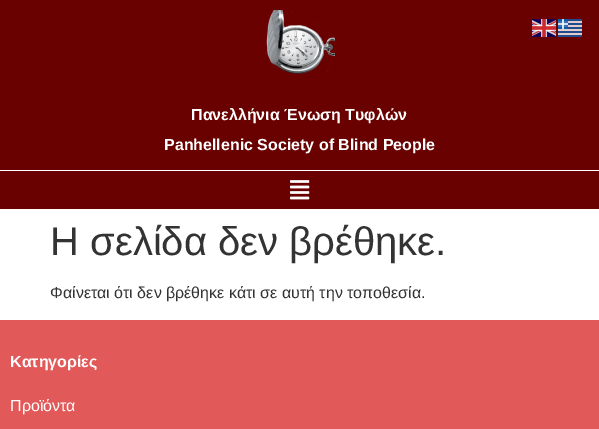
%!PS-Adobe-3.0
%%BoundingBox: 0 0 599 429
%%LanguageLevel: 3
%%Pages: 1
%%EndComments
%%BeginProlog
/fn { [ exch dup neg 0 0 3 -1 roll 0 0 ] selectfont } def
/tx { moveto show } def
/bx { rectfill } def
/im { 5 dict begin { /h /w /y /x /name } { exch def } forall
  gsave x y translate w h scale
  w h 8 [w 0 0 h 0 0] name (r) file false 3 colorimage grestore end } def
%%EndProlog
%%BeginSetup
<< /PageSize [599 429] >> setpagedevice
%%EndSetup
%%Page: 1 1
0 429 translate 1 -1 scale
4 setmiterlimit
1 setgray
0 0 599 429 bx
0.416 0.004 0.004 setrgbcolor
0 0 599 170 bx
(image0.raw) 532 19 24 18 im
(image1.raw) 558 19 24 18 im
(image2.raw) 265 10 70 64 im
/LiberationSans-Bold 16 fn
1 setgray
(Πανελλήνια Ένωση Τυφλών) 191 120 tx
(Panhellenic Society of Blind People) 164 150 tx
0.416 0.004 0.004 setrgbcolor
0 171 599 38 bx
(image3.raw) 290 180 20 20 im
/LiberationSans-Regular 40 fn
0.2 setgray
(Η σελίδα δεν βρέθηκε.) 50 255 tx
/LiberationSans-Regular 16 fn
(Φαίνεται ότι δεν βρέθηκε κάτι σε αυτή την τοποθεσία.) 50 298 tx
0.886 0.349 0.349 setrgbcolor
0 320 599 109 bx
/LiberationSans-Bold 16 fn
1 setgray
(Κατηγορίες) 10 367 tx
/LiberationSans-Regular 16 fn
(Προϊόντα) 10 411 tx
showpage
%%EOF
